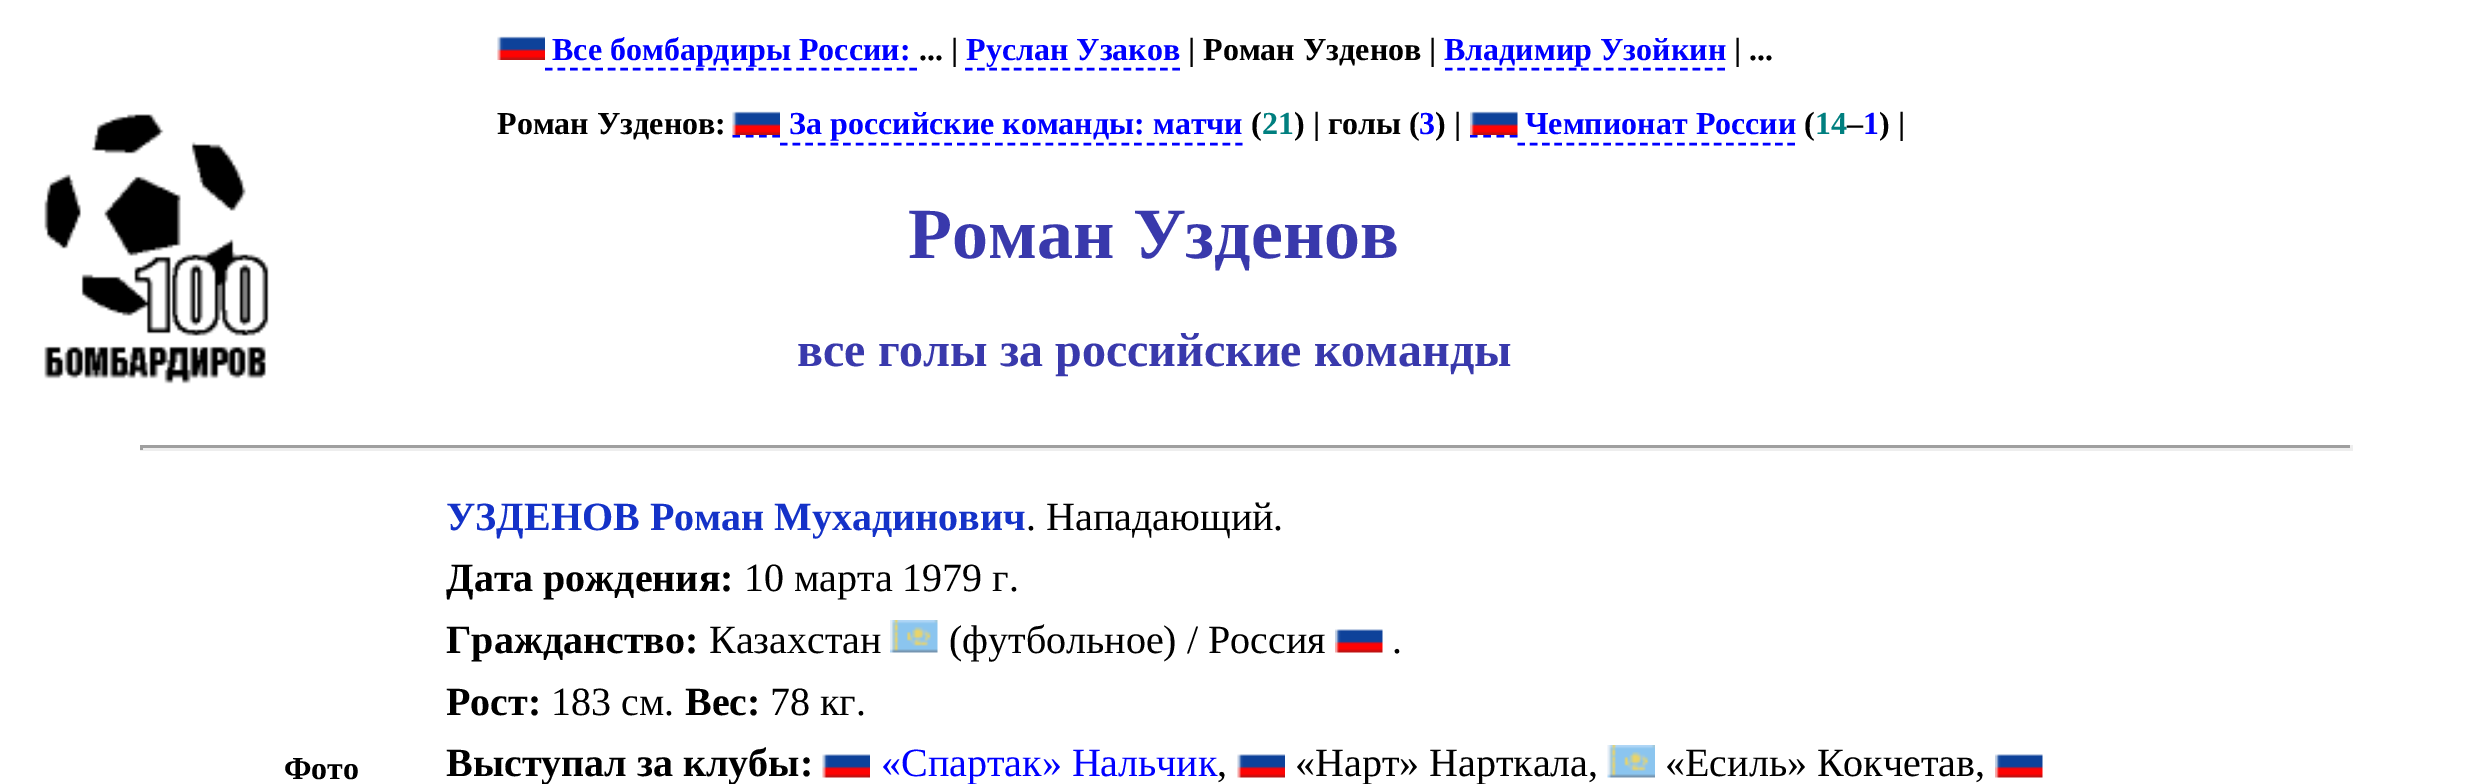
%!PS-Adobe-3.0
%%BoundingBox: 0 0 2491 784
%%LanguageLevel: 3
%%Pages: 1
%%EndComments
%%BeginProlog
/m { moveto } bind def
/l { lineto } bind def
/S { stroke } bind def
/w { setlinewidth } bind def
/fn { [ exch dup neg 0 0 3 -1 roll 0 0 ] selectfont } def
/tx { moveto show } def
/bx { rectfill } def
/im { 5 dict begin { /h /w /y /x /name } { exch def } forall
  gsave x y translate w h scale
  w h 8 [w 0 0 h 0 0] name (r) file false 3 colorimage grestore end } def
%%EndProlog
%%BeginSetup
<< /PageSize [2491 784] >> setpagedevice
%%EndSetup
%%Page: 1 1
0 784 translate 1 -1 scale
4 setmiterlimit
1 setgray
0 0 2491 784 bx
(image0.raw) 44 114 225 270 im
(image1.raw) 497 36 48 24 im
/LiberationSerif-Bold 32 fn
0 0 1 setrgbcolor
(Все бомбардиры России:) 552 60 tx
2.5 w
[7.5 5.07] 0 setdash
545 69 m 917.5 69 l S
0 setgray
(... |) 919 60 tx
0 0 1 setrgbcolor
(Руслан Узаков) 966 60 tx
[7.5 4.7] 0 setdash
965 69 m 1180 69 l S
0 setgray
(| Роман Узденов |) 1188 60 tx
0 0 1 setrgbcolor
(Владимир Узойкин) 1444 60 tx
[7.5 4.88] 0 setdash
1445 69 m 1725 69 l S
0 setgray
(| ...) 1734 60 tx
(Роман Узденов:) 497 134 tx
0 0 1 setrgbcolor
[7.5 5.83] 0 setdash
732.5 136 m 780 136 l S
(image2.raw) 732 111 48 24 im
(За российские команды: матчи) 789 134 tx
[7.5 5.15] 0 setdash
780 144 m 1242.5 144 l S
0 setgray
(\() 1251 134 tx
0 0.498 0.498 setrgbcolor
(21) 1262 134 tx
0 setgray
(\) | голы \() 1294 134 tx
0 0 1 setrgbcolor
(3) 1419 134 tx
0 setgray
(\) |) 1435 134 tx
0 0 1 setrgbcolor
[7.5 5.83] 0 setdash
1470 136 m 1517.5 136 l S
(image3.raw) 1470 111 48 24 im
(Чемпионат России) 1525 134 tx
[7.5 4.77] 0 setdash
1517.5 144 m 1795 144 l S
0 setgray
(\() 1804 134 tx
0 0.498 0.498 setrgbcolor
(14) 1815 134 tx
0 setgray
(–) 1847 134 tx
0 0 1 setrgbcolor
(1) 1863 134 tx
0 setgray
(\) |) 1879 134 tx
/LiberationSerif-Bold 72 fn
0.224 0.224 0.675 setrgbcolor
(Роман Узденов) 908 258 tx
/LiberationSerif-Bold 48 fn
(все голы за российские команды) 797 366 tx
0.624 setgray
140 445 2213 3 bx
0.933 setgray
2350 445 3 5 bx
140 448 2213 3 bx
0.624 setgray
140 445 3 5 bx
/LiberationSerif-Bold 32 fn
0 setgray
(Фото) 284 779 tx
/LiberationSerif-Bold 40 fn
0.078 0.196 0.784 setrgbcolor
(УЗДЕНОВ Роман Мухадинович) 446 530 tx
/LiberationSerif-Regular 40 fn
0 setgray
(. Нападающий.) 1026 530 tx
/LiberationSerif-Bold 40 fn
(Дата рождения:) 446 591 tx
/LiberationSerif-Regular 40 fn
(10 марта 1979 г.) 744 591 tx
/LiberationSerif-Bold 40 fn
(Гражданство:) 446 653 tx
/LiberationSerif-Regular 40 fn
(Казахстан) 709 653 tx
(image4.raw) 890 620 48 33 im
(\(футбольное\) / Россия) 949 653 tx
(image5.raw) 1335 629 48 24 im
(.) 1392 653 tx
/LiberationSerif-Bold 40 fn
(Рост:) 446 715 tx
/LiberationSerif-Regular 40 fn
(183 см.) 551 715 tx
/LiberationSerif-Bold 40 fn
(Вес:) 685 715 tx
/LiberationSerif-Regular 40 fn
(78 кг.) 770 715 tx
/LiberationSerif-Bold 40 fn
(Выступал за клубы:) 446 776 tx
(image6.raw) 822 754 48 24 im
/LiberationSerif-Regular 40 fn
0 0 1 setrgbcolor
(«Спартак» Нальчик) 881 776 tx
0 setgray
(,) 1217 776 tx
(image7.raw) 1237 754 48 24 im
(«Нарт» Нарткала,) 1295 776 tx
(image8.raw) 1607 745 48 33 im
(«Есиль» Кокчетав,) 1665 776 tx
(image9.raw) 1995 754 48 24 im
showpage
%%EOF
